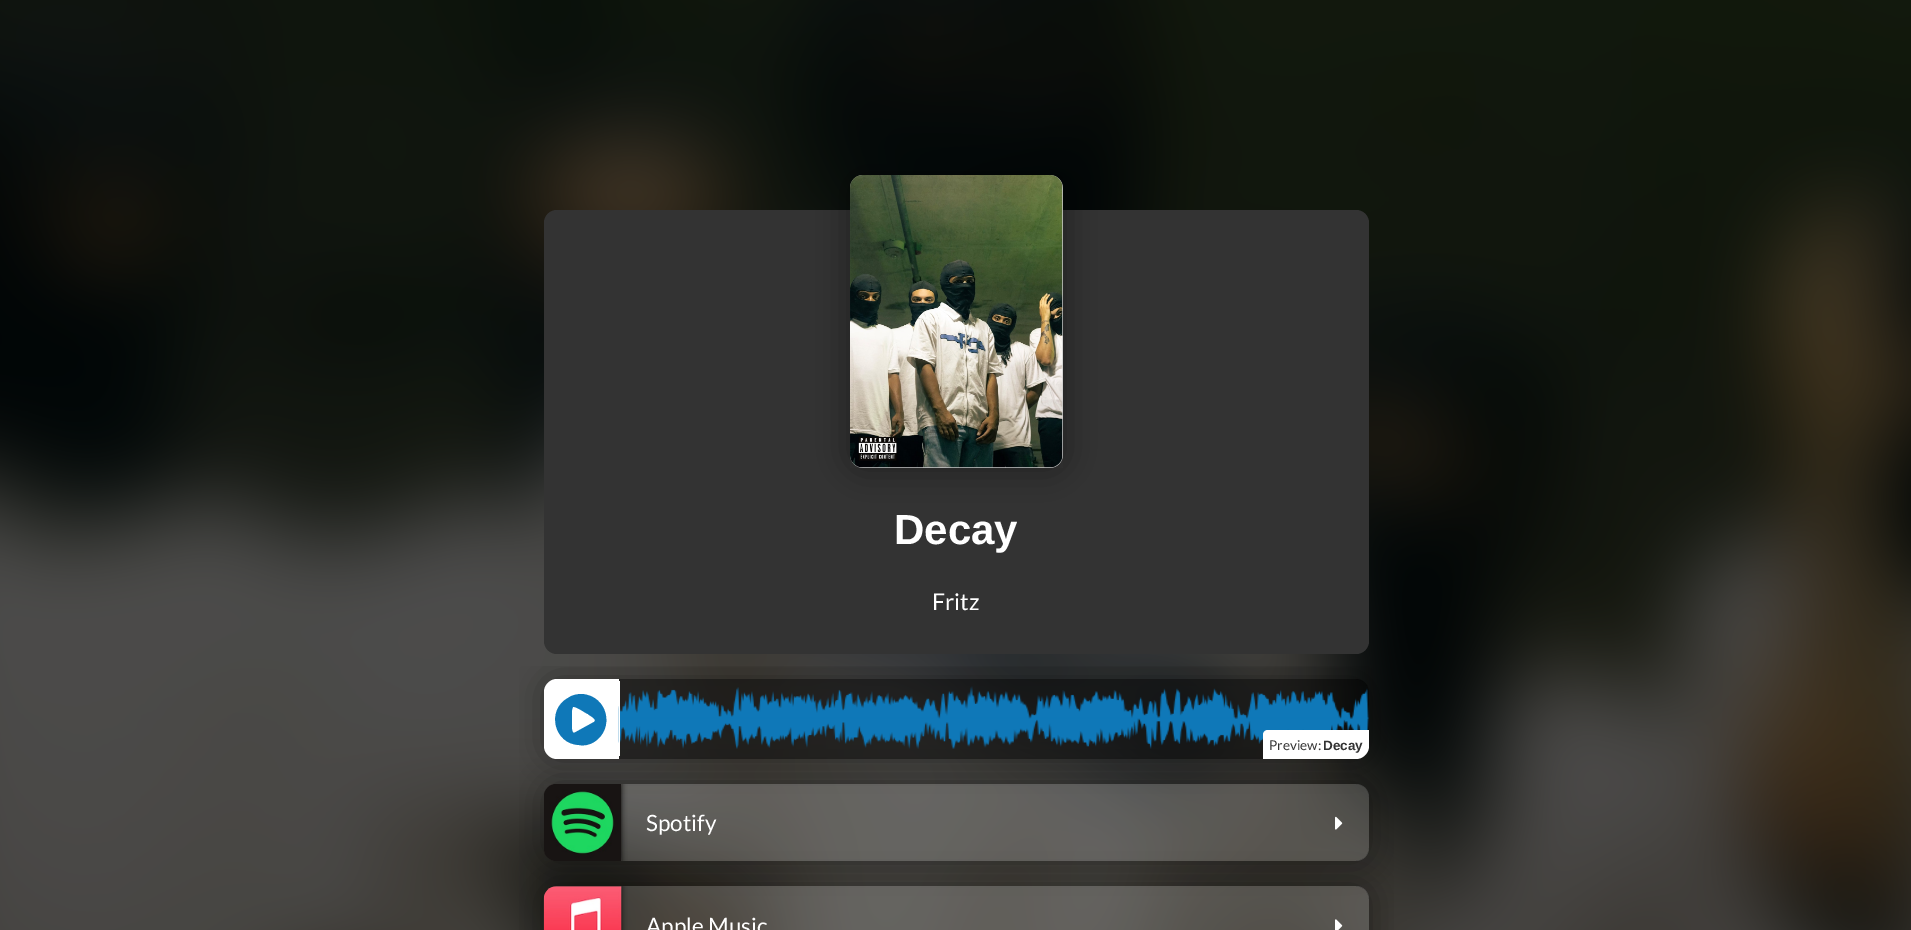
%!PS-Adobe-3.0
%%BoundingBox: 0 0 1911 930
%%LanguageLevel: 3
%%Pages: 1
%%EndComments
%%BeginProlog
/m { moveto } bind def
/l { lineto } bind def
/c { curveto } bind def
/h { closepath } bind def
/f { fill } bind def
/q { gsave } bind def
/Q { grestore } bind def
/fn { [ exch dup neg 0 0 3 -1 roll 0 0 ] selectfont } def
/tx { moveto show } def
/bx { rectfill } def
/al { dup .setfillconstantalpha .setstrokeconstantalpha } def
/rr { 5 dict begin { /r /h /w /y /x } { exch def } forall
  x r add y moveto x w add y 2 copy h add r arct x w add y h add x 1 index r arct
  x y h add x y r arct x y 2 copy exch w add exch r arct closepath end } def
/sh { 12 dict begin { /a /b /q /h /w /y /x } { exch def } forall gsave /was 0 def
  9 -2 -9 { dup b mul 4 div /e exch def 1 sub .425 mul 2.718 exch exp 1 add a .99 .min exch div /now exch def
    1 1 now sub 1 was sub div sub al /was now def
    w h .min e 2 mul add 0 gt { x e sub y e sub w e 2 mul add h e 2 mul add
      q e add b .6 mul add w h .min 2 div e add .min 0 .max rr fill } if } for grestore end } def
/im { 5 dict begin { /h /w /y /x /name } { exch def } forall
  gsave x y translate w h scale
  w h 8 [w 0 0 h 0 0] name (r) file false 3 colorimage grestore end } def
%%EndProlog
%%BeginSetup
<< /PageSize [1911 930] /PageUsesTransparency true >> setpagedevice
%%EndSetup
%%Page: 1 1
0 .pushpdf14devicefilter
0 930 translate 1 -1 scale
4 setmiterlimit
0 setgray
0 0 1911 930 bx
(image0.raw) 0 0 1911 930 im
0.2 setgray
544 210 825 444 13 rr f
0 setgray
850 175 213 293 13 15.5 0.35 sh
0.8 setgray
850 175 213 293 13 rr f
(image1.raw) 850 175 213 293 im
/LiberationSans-Bold 42 fn
1 setgray
(Decay) 894 544 tx
/Lato-Regular 23 fn
(Fritz) 932 610 tx
q
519 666 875 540 rectclip
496 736 m 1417 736 l 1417 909 l 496 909 l h 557 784 m 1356 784 l 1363 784 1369 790 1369 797 c 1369 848 l 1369 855 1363 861 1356 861 c 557 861 l 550 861 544 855 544 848 c 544 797 l 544 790 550 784 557 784 c h eoclip newpath
0 setgray
544 784 825 77 13 15.5 0.35 sh
Q
0.17 al
544 784 825 77 13 rr f
q
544 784 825 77 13 rr clip newpath
1 al
0 setgray
544 784 77 77 0 3 1 sh
Q
1 al
(image3.raw) 544 784 78 77 im
q
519 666 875 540 rectclip
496 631 m 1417 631 l 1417 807 l 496 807 l h 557 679 m 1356 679 l 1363 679 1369 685 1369 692 c 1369 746 l 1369 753 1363 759 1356 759 c 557 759 l 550 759 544 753 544 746 c 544 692 l 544 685 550 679 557 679 c h eoclip newpath
0 setgray
544 679 825 80 13 15.5 0.35 sh
Q
557 679 m 619 679 l 619 759 l 557 759 l 550 759 544 753 544 746 c 544 692 l 544 685 550 679 557 679 c h f
0.059 0.471 0.722 setrgbcolor
568 698 m 572 695 577 694 582 694 c 608 696 615 729 594 742 c 589 745 584 746 579 745 c 554 744 546 710 568 698 c h 594 722 m 598 719 588 715 588 714 c 585 713 576 706 573 707 c 571 709 572 721 572 723 c 572 725 571 732 574 733 c h f
0.5 al
0 setgray
619 679 m 1356 679 l 1363 679 1369 685 1369 692 c 1369 746 l 1369 753 1363 759 1356 759 c 619 759 l h f
1 al
(image2.raw) 618 686 751 63 im
1 setgray
619 681 1 75 bx
1268 730 m 1369 730 l 1369 746 l 1369 753 1363 759 1356 759 c 1263 759 l 1263 735 l 1263 732 1265 730 1268 730 c h f
/Lato-Regular 13.5 fn
0.2 setgray
(Preview:) 1269 750 tx
/LiberationSans-Bold 13.5 fn
(Decay) 1323 750 tx
/Lato-Regular 22.5 fn
1 setgray
(Spotify) 646 831 tx
(image4.raw) 1335 816 8 14 im
q
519 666 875 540 rectclip
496 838 m 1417 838 l 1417 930 l 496 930 l h 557 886 m 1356 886 l 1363 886 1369 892 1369 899 c 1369 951 l 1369 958 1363 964 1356 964 c 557 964 l 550 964 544 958 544 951 c 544 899 l 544 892 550 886 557 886 c h eoclip newpath
0 setgray
544 886 825 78 13 15.5 0.35 sh
Q
0.17 al
544 886 825 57 13 rr f
q
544 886 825 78 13 rr clip newpath
1 al
0 setgray
544 886 77 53 0 3 1 sh
Q
1 al
(image5.raw) 543 886 79 44 im
(Apple Music) 646 934 tx
(image6.raw) 1335 919 8 11 im
.poppdf14devicefilter showpage
%%EOF
